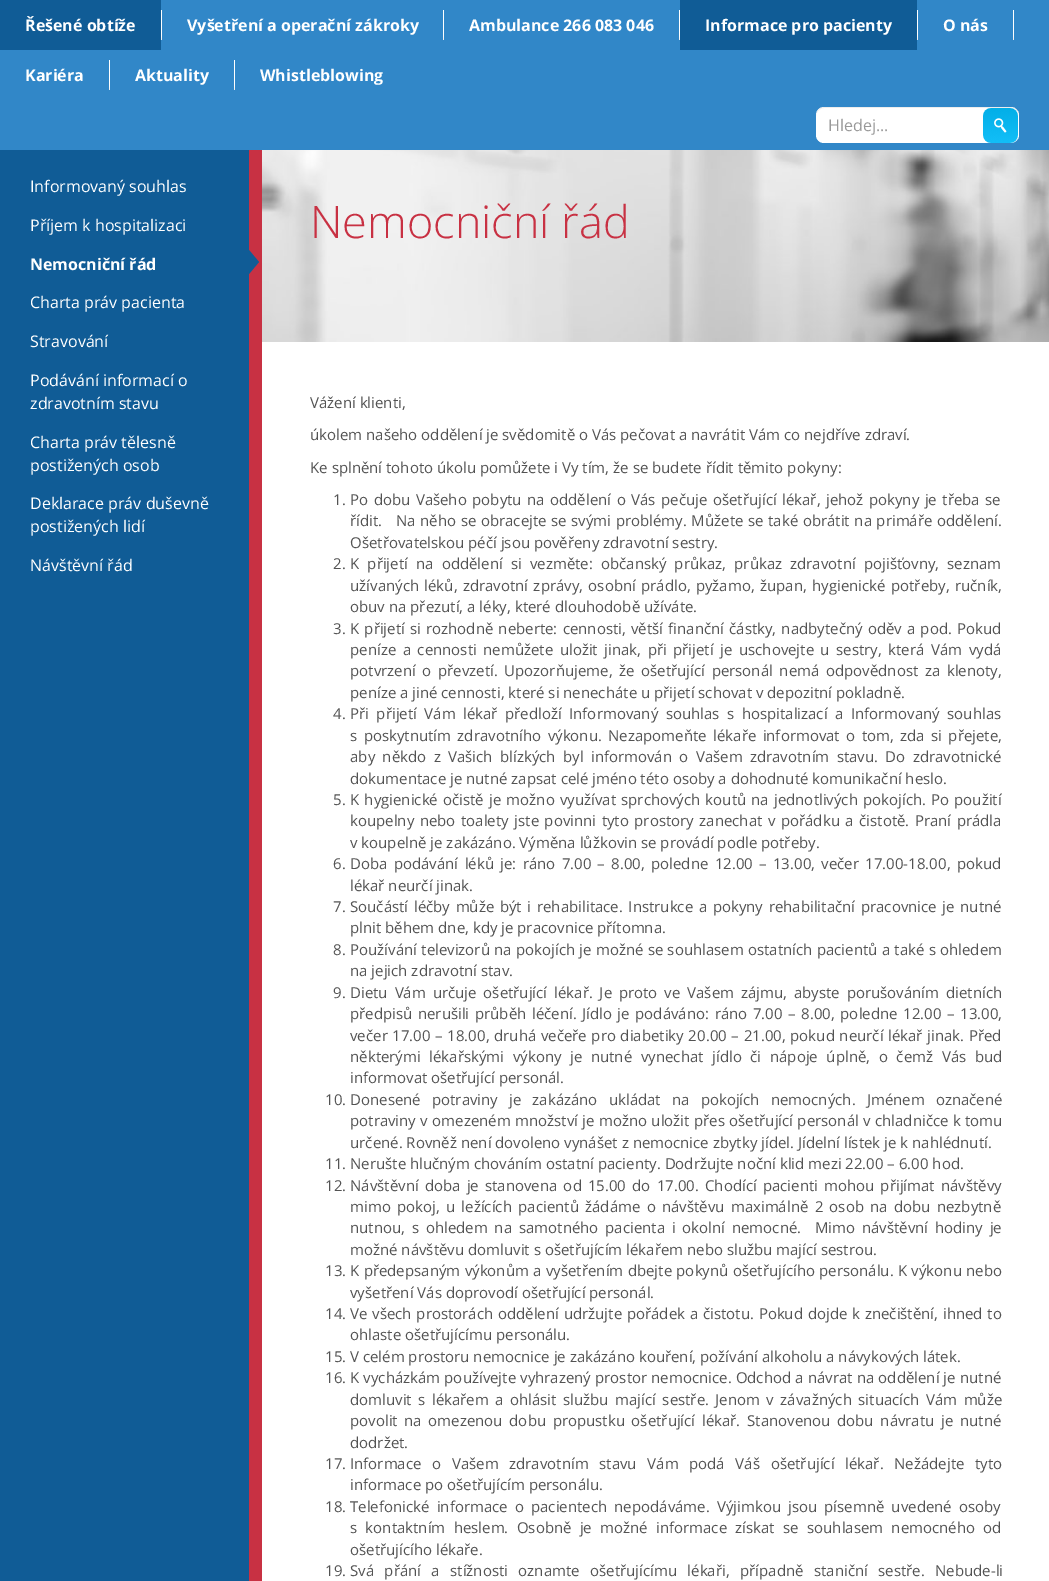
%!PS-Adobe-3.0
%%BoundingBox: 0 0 1049 1581
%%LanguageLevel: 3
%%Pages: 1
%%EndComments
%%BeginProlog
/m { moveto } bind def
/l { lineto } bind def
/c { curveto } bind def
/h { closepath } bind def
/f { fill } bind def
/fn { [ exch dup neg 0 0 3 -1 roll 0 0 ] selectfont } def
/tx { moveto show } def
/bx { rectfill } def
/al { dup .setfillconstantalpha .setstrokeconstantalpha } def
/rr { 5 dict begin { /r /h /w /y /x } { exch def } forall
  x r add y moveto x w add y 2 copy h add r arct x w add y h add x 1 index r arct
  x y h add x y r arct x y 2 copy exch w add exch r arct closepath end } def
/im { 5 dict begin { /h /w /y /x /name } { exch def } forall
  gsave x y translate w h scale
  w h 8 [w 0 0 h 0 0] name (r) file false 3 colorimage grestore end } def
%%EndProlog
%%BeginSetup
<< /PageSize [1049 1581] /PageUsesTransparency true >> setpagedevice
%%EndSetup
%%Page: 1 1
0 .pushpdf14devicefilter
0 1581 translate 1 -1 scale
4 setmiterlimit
1 setgray
0 0 1049 1581 bx
0.192 0.529 0.784 setrgbcolor
0 0 1049 150 bx
(image0.raw) 161 10 1 30 im
0.063 0.361 0.588 setrgbcolor
0 0 161 50 bx
/OpenSans-Bold 16 fn
1 setgray
(Řešené obtíže) 25 31 tx
(image0.raw) 443 10 1 30 im
(Vyšetření a operační zákroky) 187 31 tx
(image0.raw) 679 10 1 30 im
(Ambulance 266 083 046) 469 31 tx
(image0.raw) 917 10 1 30 im
0.063 0.361 0.588 setrgbcolor
680 0 237 50 bx
1 setgray
(Informace pro pacienty) 705 31 tx
(image0.raw) 1013 10 1 30 im
(O nás) 943 31 tx
(image0.raw) 109 60 1 30 im
(Kariéra) 25 81 tx
(image0.raw) 234 60 1 30 im
(Aktuality) 135 81 tx
(Whistleblowing) 260 81 tx
816 107 203 36 8 rr f
0.07 al
0 setgray
824 108 m 1011 108 l 1015 108 1019 112 1019 116 c 1019 115 l 1019 111 1015 107 1011 107 c 824 107 l 820 107 816 111 816 115 c 816 116 l 816 112 820 108 824 108 c h f
/OpenSans-Regular 16 fn
1 al
0.6 setgray
(Hledej...) 828 131 tx
(image1.raw) 983 108 35 35 im
0.063 0.361 0.588 setrgbcolor
0 150 249 1431 bx
0.784 0.192 0.263 setrgbcolor
249 150 13 1431 bx
1 setgray
(Informovaný souhlas) 30 192 tx
(Příjem k hospitalizaci) 30 231 tx
/OpenSans-Bold 16 fn
(Nemocniční řád) 30 270 tx
0.063 0.361 0.588 setrgbcolor
249 274 m 249 250 l 259 262 l h f
/OpenSans-Regular 16 fn
1 setgray
(Charta práv pacienta) 30 308 tx
(Stravování) 30 347 tx
(Podávání informací o) 30 386 tx
(zdravotním stavu) 30 409 tx
(Charta práv tělesně) 30 448 tx
(postižených osob) 30 471 tx
(Deklarace práv duševně) 30 509 tx
(postižených lidí) 30 532 tx
(Návštěvní řád) 30 571 tx
(image2.raw) 262 150 787 192 im
/OpenSans-Light 45 fn
0.784 0.192 0.263 setrgbcolor
(Nemocniční řád) 310 238 tx
/OpenSans-Regular 15 fn
0.325 setgray
(Vážení klienti,) 310 408 tx
(úkolem našeho oddělení je svědomitě o Vás pečovat a navrátit Vám co nejdříve zdraví.) 310 440 tx
(Ke splnění tohoto úkolu pomůžete i Vy tím, že se budete řídit těmito pokyny:) 310 473 tx
(1.) 333 505 tx
350 505 m 1.6 0 32 (Po dobu Vašeho pobytu na oddělení o Vás pečuje ošetřující lékař, jehož pokyny je třeba se) widthshow
350 526 m 0.7 0 32 (řídit.   Na něho se obracejte se svými problémy. Můžete se také obrátit na primáře oddělení.) widthshow
(Ošetřovatelskou péčí jsou pověřeny zdravotní sestry.) 350 548 tx
(2.) 333 569 tx
350 569 m 4.25 0 32 (K přijetí na oddělení si vezměte: občanský průkaz, průkaz zdravotní pojišťovny, seznam) widthshow
350 591 m 1.4 0 32 (užívaných léků, zdravotní zprávy, osobní prádlo, pyžamo, župan, hygienické potřeby, ručník,) widthshow
(obuv na přezutí, a léky, které dlouhodobě užíváte.) 350 612 tx
(3.) 333 634 tx
350 634 m 1.25 0 32 (K přijetí si rozhodně neberte: cennosti, větší finanční částky, nadbytečný oděv a pod. Pokud) widthshow
350 655 m 2.6 0 32 (peníze a cennosti nemůžete uložit jinak, při přijetí je uschovejte u sestry, která Vám vydá) widthshow
350 676 m 2.75 0 32 (potvrzení o převzetí. Upozorňujeme, že ošetřující personál nemá odpovědnost za klenoty,) widthshow
(peníze a jiné cennosti, které si nenecháte u přijetí schovat v depozitní pokladně.) 350 698 tx
(4.) 333 719 tx
350 719 m 3.6 0 32 (Při přijetí Vám lékař předloží Informovaný souhlas s hospitalizací a Informovaný souhlas) widthshow
350 741 m 2.5 0 32 (s poskytnutím zdravotního výkonu. Nezapomeňte lékaře informovat o tom, zda si přejete,) widthshow
350 762 m 3.5 0 32 (aby někdo z Vašich blízkých byl informován o Vašem zdravotním stavu. Do zdravotnické) widthshow
(dokumentace je nutné zapsat celé jméno této osoby a dohodnuté komunikační heslo.) 350 784 tx
(5.) 333 805 tx
350 805 m 1.25 0 32 (K hygienické očistě je možno využívat sprchových koutů na jednotlivých pokojích. Po použití) widthshow
350 826 m 1.6 0 32 (koupelny nebo toalety jste povinni tyto prostory zanechat v pořádku a čistotě. Praní prádla) widthshow
(v koupelně je zakázáno. Výměna lůžkovin se provádí podle potřeby.) 350 848 tx
(6.) 333 869 tx
350 869 m 2.4 0 32 (Doba podávání léků je: ráno 7.00 – 8.00, poledne 12.00 – 13.00, večer 17.00-18.00, pokud) widthshow
(lékař neurčí jinak.) 350 891 tx
(7.) 333 912 tx
350 912 m 1.75 0 32 (Součástí léčby může být i rehabilitace. Instrukce a pokyny rehabilitační pracovnice je nutné) widthshow
(plnit během dne, kdy je pracovnice přítomna.) 350 933 tx
(8.) 333 955 tx
350 955 m 0.4 0 32 (Používání televizorů na pokojích je možné se souhlasem ostatních pacientů a také s ohledem) widthshow
(na jejich zdravotní stav.) 350 976 tx
(9.) 333 998 tx
350 998 m 3 0 32 (Dietu Vám určuje ošetřující lékař. Je proto ve Vašem zájmu, abyste porušováním dietních) widthshow
350 1019 m 1.7 0 32 (předpisů nerušili průběh léčení. Jídlo je podáváno: ráno 7.00 – 8.00, poledne 12.00 – 13.00,) widthshow
350 1041 m 0.75 0 32 (večer 17.00 – 18.00, druhá večeře pro diabetiky 20.00 – 21.00, pokud neurčí lékař jinak. Před) widthshow
350 1062 m 4.75 0 32 (některými lékařskými výkony je nutné vynechat jídlo či nápoje úplně, o čemž Vás bud) widthshow
(informovat ošetřující personál.) 350 1083 tx
(10.) 325 1105 tx
350 1105 m 7.25 0 32 (Donesené potraviny je zakázáno ukládat na pokojích nemocných. Jménem označené) widthshow
350 1126 m 0.5 0 32 (potraviny v omezeném množství je možno uložit přes ošetřující personál v chladničce k tomu) widthshow
(určené. Rovněž není dovoleno vynášet z nemocnice zbytky jídel. Jídelní lístek je k nahlédnutí.) 350 1148 tx
(11. Nerušte hlučným chováním ostatní pacienty. Dodržujte noční klid mezi 22.00 – 6.00 hod.) 325 1169 tx
(12.) 325 1191 tx
350 1191 m 2.25 0 32 (Návštěvní doba je stanovena od 15.00 do 17.00. Chodící pacienti mohou přijímat návštěvy) widthshow
350 1212 m 2.4 0 32 (mimo pokoj, u ležících pacientů žádáme o návštěvu maximálně 2 osob na dobu nezbytně) widthshow
350 1233 m 2.9 0 32 (nutnou, s ohledem na samotného pacienta i okolní nemocné.  Mimo návštěvní hodiny je) widthshow
(možné návštěvu domluvit s ošetřujícím lékařem nebo službu mající sestrou.) 350 1255 tx
(13.) 325 1276 tx
350 1276 m 0.5 0 32 (K předepsaným výkonům a vyšetřením dbejte pokynů ošetřujícího personálu. K výkonu nebo) widthshow
(vyšetření Vás doprovodí ošetřující personál.) 350 1298 tx
(14.) 325 1319 tx
350 1319 m 0.9 0 32 (Ve všech prostorách oddělení udržujte pořádek a čistotu. Pokud dojde k znečištění, ihned to) widthshow
(ohlaste ošetřujícímu personálu.) 350 1340 tx
(15. V celém prostoru nemocnice je zakázáno kouření, požívání alkoholu a návykových látek.) 325 1362 tx
(16.) 325 1383 tx
350 1383 m 0.25 0 32 (K vycházkám používejte vyhrazený prostor nemocnice. Odchod a návrat na oddělení je nutné) widthshow
350 1405 m 2.6 0 32 (domluvit s lékařem a ohlásit službu mající sestře. Jenom v závažných situacích Vám může) widthshow
350 1426 m 2.75 0 32 (povolit na omezenou dobu propustku ošetřující lékař. Stanovenou dobu návratu je nutné) widthshow
(dodržet.) 350 1448 tx
(17.) 325 1469 tx
350 1469 m 6.75 0 32 (Informace o Vašem zdravotním stavu Vám podá Váš ošetřující lékař. Nežádejte tyto) widthshow
(informace po ošetřujícím personálu.) 350 1490 tx
(18.) 325 1512 tx
350 1512 m 3.25 0 32 (Telefonické informace o pacientech nepodáváme. Výjimkou jsou písemně uvedené osoby) widthshow
350 1533 m 4.4 0 32 (s kontaktním heslem. Osobně je možné informace získat se souhlasem nemocného od) widthshow
(ošetřujícího lékaře.) 350 1555 tx
(19.) 325 1576 tx
350 1576 m 6.5 0 32 (Svá přání a stížnosti oznamte ošetřujícímu lékaři, případně staniční sestře. Nebude-li) widthshow
.poppdf14devicefilter showpage
%%EOF
